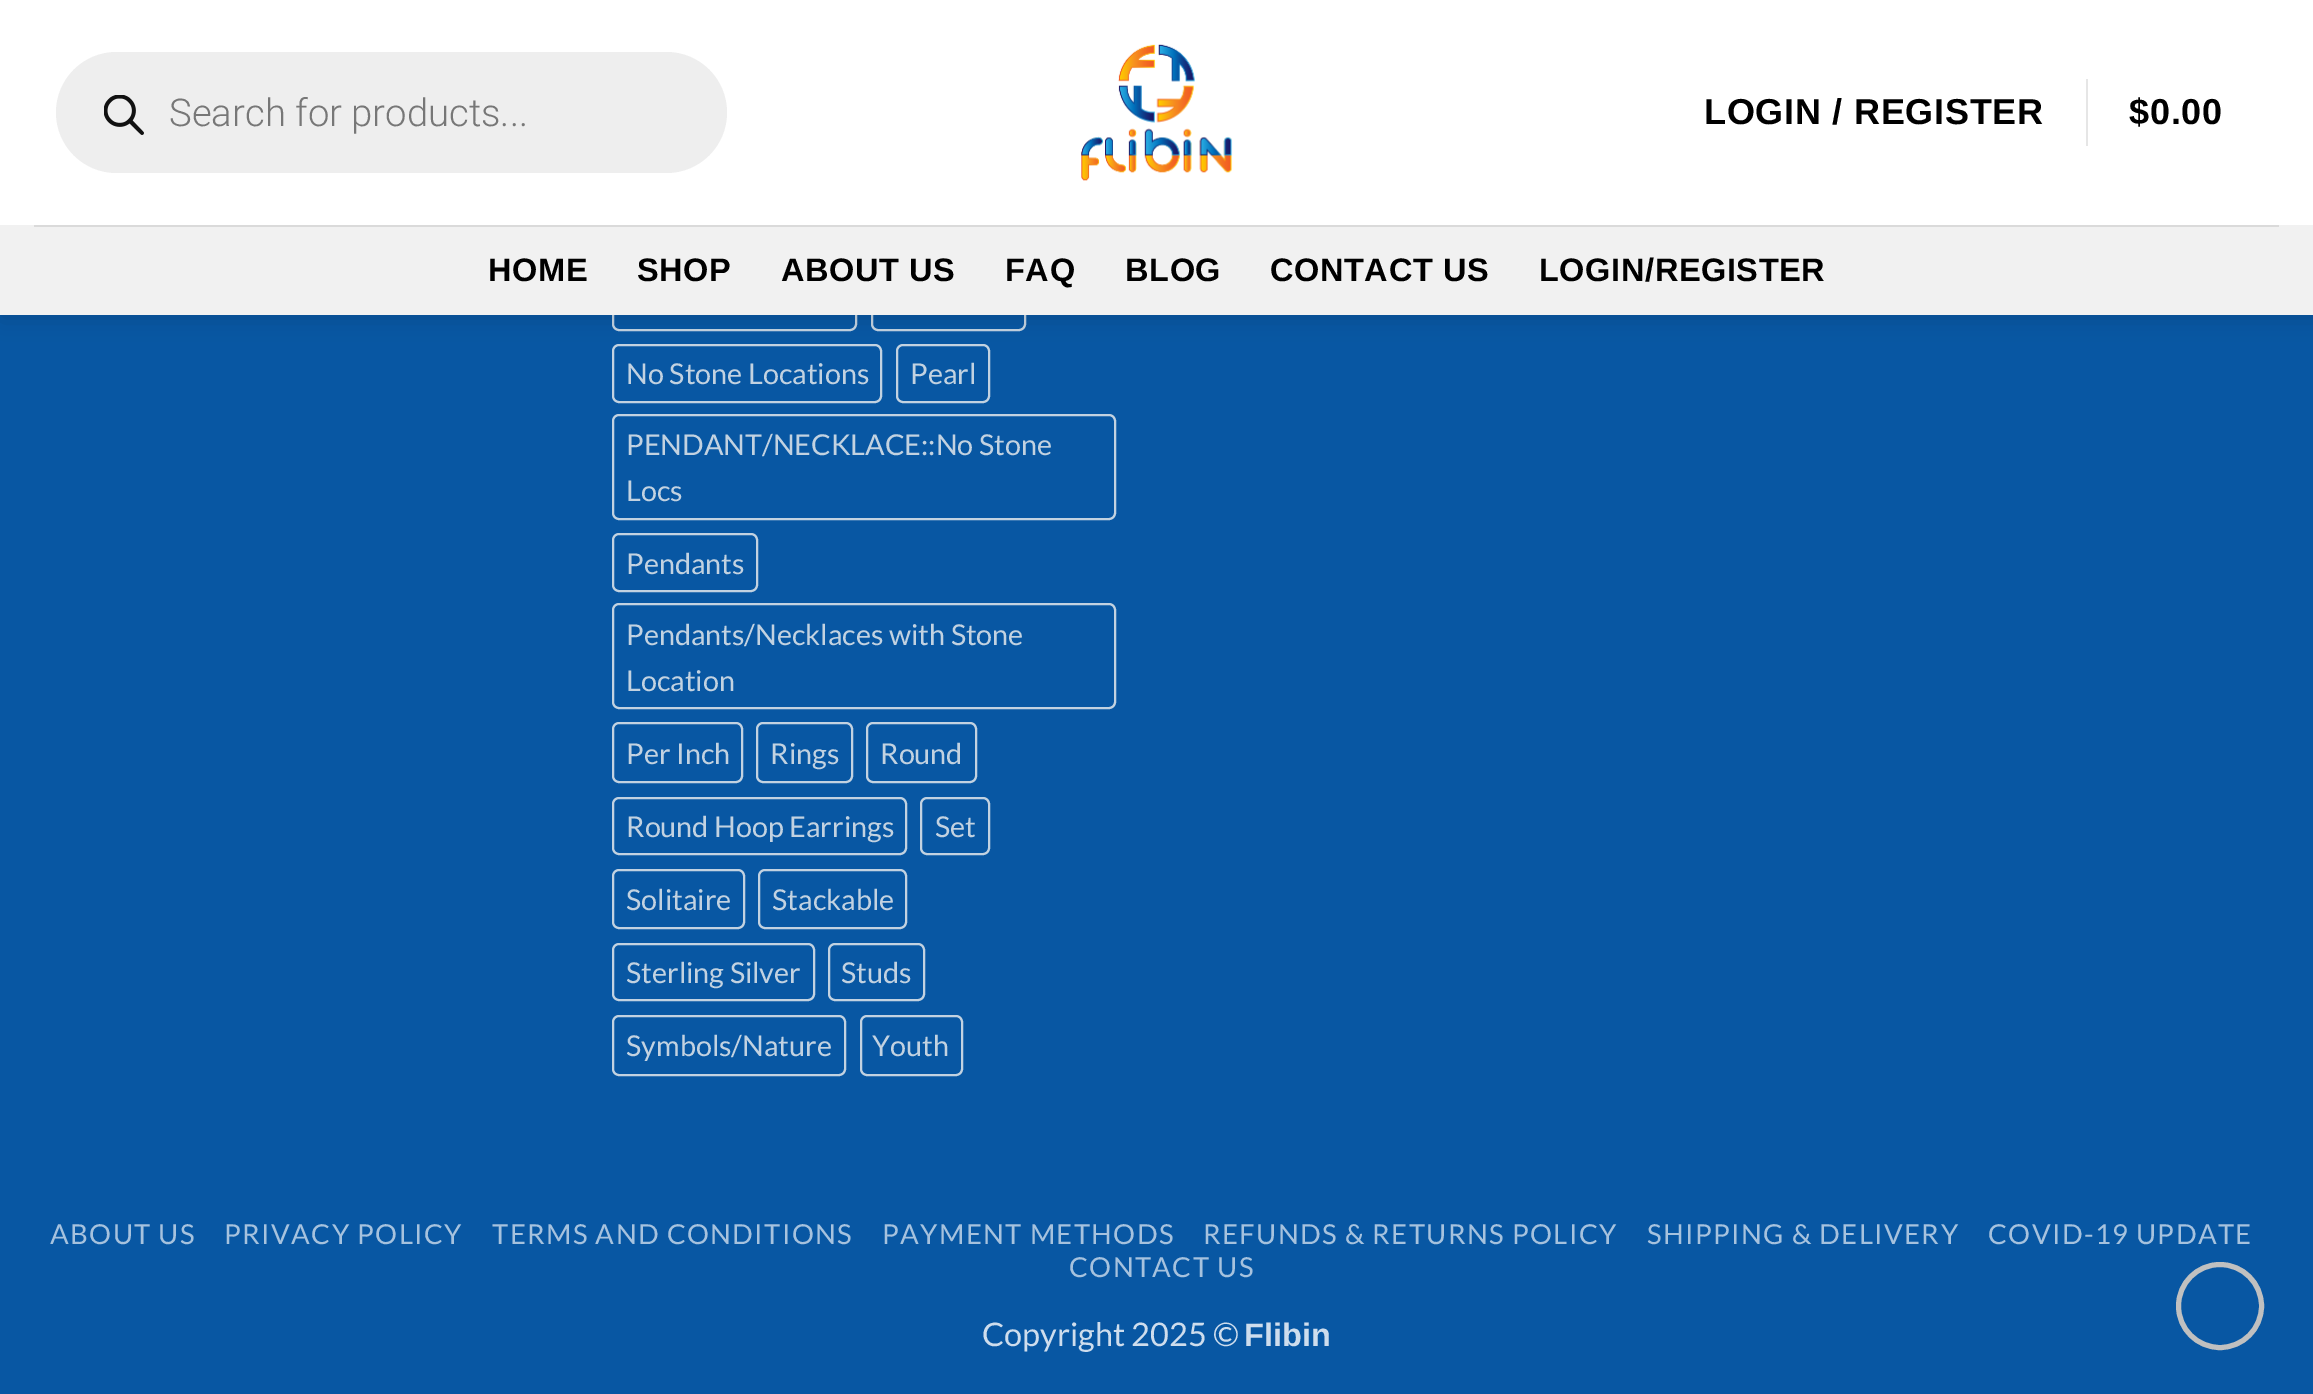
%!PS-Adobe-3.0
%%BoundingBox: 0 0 2313 1394
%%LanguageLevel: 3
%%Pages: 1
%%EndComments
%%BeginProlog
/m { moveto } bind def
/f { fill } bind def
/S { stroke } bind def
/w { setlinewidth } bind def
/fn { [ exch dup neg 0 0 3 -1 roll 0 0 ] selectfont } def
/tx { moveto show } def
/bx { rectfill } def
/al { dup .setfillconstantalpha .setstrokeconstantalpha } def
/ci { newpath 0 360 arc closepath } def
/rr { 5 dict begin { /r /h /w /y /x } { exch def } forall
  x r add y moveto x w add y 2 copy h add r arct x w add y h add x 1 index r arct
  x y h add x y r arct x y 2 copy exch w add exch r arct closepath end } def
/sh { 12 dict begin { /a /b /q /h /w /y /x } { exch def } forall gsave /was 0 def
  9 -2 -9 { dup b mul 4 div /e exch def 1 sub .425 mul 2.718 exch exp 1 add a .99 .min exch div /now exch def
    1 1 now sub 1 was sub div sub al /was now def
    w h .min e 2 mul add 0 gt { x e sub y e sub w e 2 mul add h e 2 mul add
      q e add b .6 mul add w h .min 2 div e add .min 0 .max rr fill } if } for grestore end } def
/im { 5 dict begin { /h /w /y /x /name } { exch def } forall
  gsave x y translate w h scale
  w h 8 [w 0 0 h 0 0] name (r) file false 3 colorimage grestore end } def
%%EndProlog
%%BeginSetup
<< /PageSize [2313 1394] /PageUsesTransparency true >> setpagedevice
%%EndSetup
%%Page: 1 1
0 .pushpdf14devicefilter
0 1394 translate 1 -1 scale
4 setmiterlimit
0.031 0.341 0.639 setrgbcolor
0 0 2313 1394 bx
0.761 0.824 0.882 setrgbcolor
2 w
613 271 243 59 6 rr S
872 271 153 59 6 rr S
613 345 268 57 6 rr S
897 345 92 57 6 rr S
0 setgray
2 2 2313 315 0 11 0.15 sh
1 setgray
0 0 2313 225 bx
0.933 setgray
56 52 671 121 60.5 rr f
(image0.raw) 104 95 40 40 im
/Roboto-Light 38.25 fn
0.467 setgray
(Search for products...) 169 126 tx
(image1.raw) 1081 44 152 137 im
/LiberationSans-Bold 36 fn
0 setgray
1704 124 m 0.75 0 (LOGIN / REGISTER) ashow
0.902 setgray
2086 79 2 67 bx
0 setgray
2129 124 m 0.75 0 ($0.00) ashow
0.945 setgray
0 225 2313 90 bx
0.855 setgray
34 225 2245 2 bx
/LiberationSans-Bold 32.5 fn
0 setgray
488 281 m 0.6 0 (HOME) ashow
637 281 m 0.6 0 (SHOP) ashow
781 281 m 0.6 0 (ABOUT US) ashow
1005 281 m 0.6 0 (FAQ) ashow
1125 281 m 0.6 0 (BLOG) ashow
1270 281 m 0.6 0 (CONTACT US) ashow
1539 281 m 0.6 0 (LOGIN/REGISTER) ashow
/Lato-Regular 28.75 fn
0.761 0.824 0.882 setrgbcolor
(No Stone Locations) 626 384 tx
(Pearl) 910 384 tx
613 415 502 104 6 rr S
(PENDANT/NECKLACE::No Stone) 626 455 tx
(Locs) 626 501 tx
613 534 144 57 6 rr S
(Pendants) 626 574 tx
613 604 502 104 6 rr S
(Pendants/Necklaces with Stone) 626 645 tx
(Location) 626 691 tx
613 723 129 59 6 rr S
(Per Inch) 626 764 tx
757 723 95 59 6 rr S
(Rings) 770 764 tx
867 723 109 59 6 rr S
(Round) 880 764 tx
613 798 293 56 6 rr S
(Round Hoop Earrings) 626 837 tx
921 798 68 56 6 rr S
(Set) 935 837 tx
613 870 131 58 6 rr S
(Solitaire) 626 910 tx
759 870 147 58 6 rr S
(Stackable) 772 910 tx
613 944 201 56 6 rr S
(Sterling Silver) 626 983 tx
829 944 95 56 6 rr S
(Studs) 841 983 tx
613 1016 232 59 6 rr S
(Symbols/Nature) 626 1056 tx
861 1016 101 59 6 rr S
(Youth) 872 1056 tx
/Lato-Regular 27.5 fn
0.651 0.761 0.871 setrgbcolor
50 1244 m 1.4 0 (ABOUT US) ashow
224 1244 m 1.4 0 (PRIVACY POLICY) ashow
492 1244 m 1.4 0 (TERMS AND CONDITIONS) ashow
882 1244 m 1.4 0 (PAYMENT METHODS) ashow
1203 1244 m 1.4 0 (REFUNDS & RETURNS POLICY) ashow
1647 1244 m 1.4 0 (SHIPPING & DELIVERY) ashow
1988 1244 m 1.4 0 (COVID-19 UPDATE) ashow
1069 1277 m 1.4 0 (CONTACT US) ashow
/Lato-Regular 32.5 fn
0.808 0.867 0.929 setrgbcolor
(Copyright 2025 ©) 982 1346 tx
/LiberationSans-Bold 32.5 fn
(Flibin) 1244 1346 tx
0.753 setgray
5 w
2220 1306 41.5 ci S
.poppdf14devicefilter showpage
%%EOF
